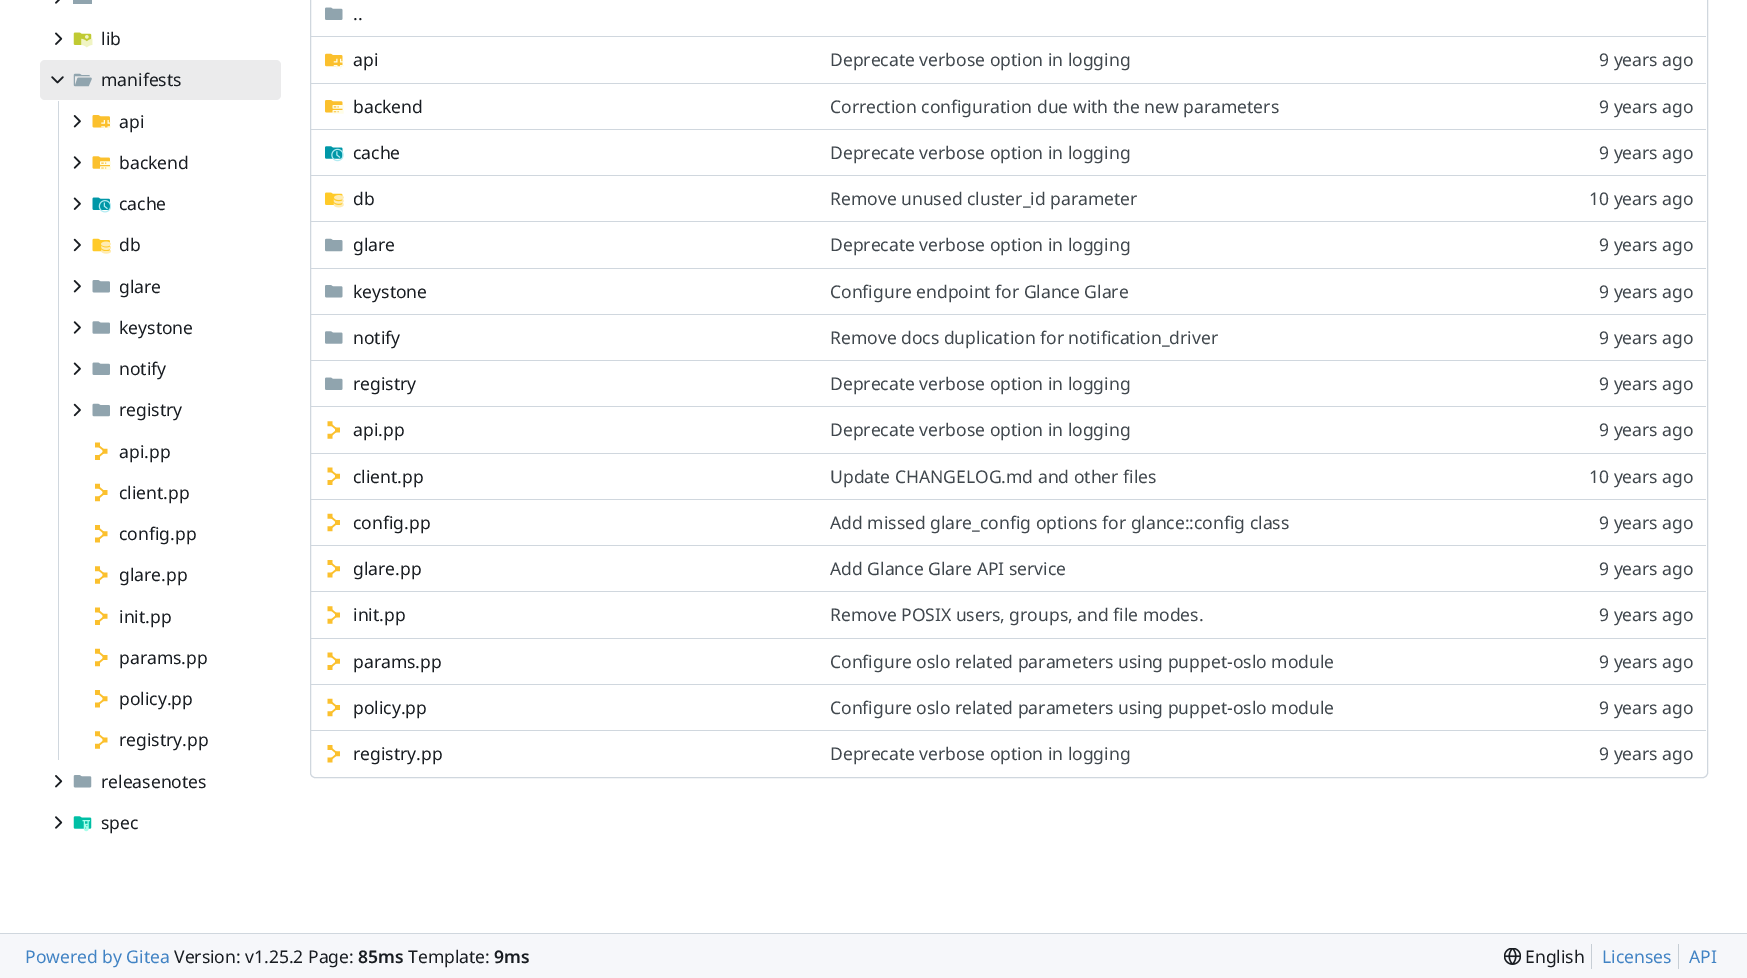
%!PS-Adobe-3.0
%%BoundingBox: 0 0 1747 978
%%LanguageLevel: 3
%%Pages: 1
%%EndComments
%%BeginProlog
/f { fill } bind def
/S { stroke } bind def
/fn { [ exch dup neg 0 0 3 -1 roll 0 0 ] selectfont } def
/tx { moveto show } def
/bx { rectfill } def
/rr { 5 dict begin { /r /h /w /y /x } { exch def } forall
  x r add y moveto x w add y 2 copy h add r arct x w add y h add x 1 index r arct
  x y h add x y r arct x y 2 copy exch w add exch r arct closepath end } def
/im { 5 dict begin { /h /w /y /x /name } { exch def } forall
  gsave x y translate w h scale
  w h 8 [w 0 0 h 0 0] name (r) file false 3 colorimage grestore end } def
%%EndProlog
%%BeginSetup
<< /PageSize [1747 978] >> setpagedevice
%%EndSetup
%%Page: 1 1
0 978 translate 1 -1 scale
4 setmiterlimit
1 setgray
0 0 1747 978 bx
(image0.raw) 55 0 5 4 im
0.565 0.643 0.682 setrgbcolor
73 0 19 4 bx
(image1.raw) 55 32 8 13 im
(image2.raw) 73 32 20 16 im
/NotoSans-Regular 17.5 fn
0.094 0.11 0.129 setrgbcolor
(lib) 101 45 tx
0.922 0.922 0.925 setrgbcolor
40 60 241 40 5 rr f
(image3.raw) 51 76 13 8 im
(image4.raw) 73 73 19 14 im
0.094 0.11 0.129 setrgbcolor
(manifests) 101 86 tx
0.816 0.843 0.871 setrgbcolor
58 101 1 659 bx
(image5.raw) 73 115 8 13 im
(image6.raw) 92 115 19 15 im
0.094 0.11 0.129 setrgbcolor
(api) 119 128 tx
(image7.raw) 73 156 8 13 im
(image8.raw) 92 156 19 14 im
(backend) 119 169 tx
(image9.raw) 73 197 8 13 im
(image10.raw) 92 197 19 16 im
(cache) 119 210 tx
(image11.raw) 73 238 8 14 im
(image12.raw) 92 238 19 16 im
(db) 119 251 tx
(image5.raw) 73 280 8 13 im
(image13.raw) 92 280 18 13 im
(glare) 119 293 tx
(image7.raw) 73 321 8 13 im
(image14.raw) 92 321 18 13 im
(keystone) 119 334 tx
(image9.raw) 73 362 8 13 im
(image15.raw) 92 362 18 13 im
(notify) 119 375 tx
(image11.raw) 73 403 8 14 im
(image16.raw) 92 403 18 14 im
(registry) 119 416 tx
(image17.raw) 95 442 13 18 im
(api.pp) 119 458 tx
(image18.raw) 95 483 13 19 im
(client.pp) 119 499 tx
(image19.raw) 95 525 13 18 im
(config.pp) 119 540 tx
(image20.raw) 95 566 13 18 im
(glare.pp) 119 581 tx
(image17.raw) 95 607 13 18 im
(init.pp) 119 623 tx
(image18.raw) 95 648 13 19 im
(params.pp) 119 664 tx
(image19.raw) 95 690 13 18 im
(policy.pp) 119 705 tx
(image20.raw) 95 731 13 18 im
(registry.pp) 119 746 tx
(image21.raw) 55 775 8 13 im
(image22.raw) 73 775 19 13 im
(releasenotes) 101 788 tx
(image23.raw) 55 816 8 13 im
(image24.raw) 73 816 19 16 im
(spec) 101 829 tx
0.816 0.843 0.871 setrgbcolor
310.5 -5.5 1397 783 4.5 rr S
(image25.raw) 325 7 18 13 im
0.094 0.11 0.129 setrgbcolor
(..) 353 20 tx
0.816 0.843 0.871 setrgbcolor
311 36 1265 1 bx
(image26.raw) 325 53 19 16 im
0.094 0.11 0.129 setrgbcolor
(api) 353 66 tx
0.251 0.278 0.302 setrgbcolor
(Deprecate verbose option in logging) 830 66 tx
0.816 0.843 0.871 setrgbcolor
1576 36 130 1 bx
0.251 0.278 0.302 setrgbcolor
(9 years ago) 1599 66 tx
0.816 0.843 0.871 setrgbcolor
311 83 1265 1 bx
(image27.raw) 325 100 19 14 im
0.094 0.11 0.129 setrgbcolor
(backend) 353 113 tx
0.251 0.278 0.302 setrgbcolor
(Correction configuration due with the new parameters) 830 113 tx
0.816 0.843 0.871 setrgbcolor
1576 83 130 1 bx
0.251 0.278 0.302 setrgbcolor
(9 years ago) 1599 113 tx
0.816 0.843 0.871 setrgbcolor
311 129 1265 1 bx
(image28.raw) 325 146 19 16 im
0.094 0.11 0.129 setrgbcolor
(cache) 353 159 tx
0.251 0.278 0.302 setrgbcolor
(Deprecate verbose option in logging) 830 159 tx
0.816 0.843 0.871 setrgbcolor
1576 129 130 1 bx
0.251 0.278 0.302 setrgbcolor
(9 years ago) 1599 159 tx
0.816 0.843 0.871 setrgbcolor
311 175 1265 1 bx
(image29.raw) 325 192 19 16 im
0.094 0.11 0.129 setrgbcolor
(db) 353 205 tx
0.251 0.278 0.302 setrgbcolor
(Remove unused cluster_id parameter) 830 205 tx
0.816 0.843 0.871 setrgbcolor
1576 175 130 1 bx
0.251 0.278 0.302 setrgbcolor
(10 years ago) 1589 205 tx
0.816 0.843 0.871 setrgbcolor
311 221 1265 1 bx
(image30.raw) 325 238 18 14 im
0.094 0.11 0.129 setrgbcolor
(glare) 353 251 tx
0.251 0.278 0.302 setrgbcolor
(Deprecate verbose option in logging) 830 251 tx
0.816 0.843 0.871 setrgbcolor
1576 221 130 1 bx
0.251 0.278 0.302 setrgbcolor
(9 years ago) 1599 251 tx
0.816 0.843 0.871 setrgbcolor
311 268 1265 1 bx
(image31.raw) 325 285 18 13 im
0.094 0.11 0.129 setrgbcolor
(keystone) 353 298 tx
0.251 0.278 0.302 setrgbcolor
(Configure endpoint for Glance Glare) 830 298 tx
0.816 0.843 0.871 setrgbcolor
1576 268 130 1 bx
0.251 0.278 0.302 setrgbcolor
(9 years ago) 1599 298 tx
0.816 0.843 0.871 setrgbcolor
311 314 1265 1 bx
(image32.raw) 325 331 18 13 im
0.094 0.11 0.129 setrgbcolor
(notify) 353 344 tx
0.251 0.278 0.302 setrgbcolor
(Remove docs duplication for notification_driver) 830 344 tx
0.816 0.843 0.871 setrgbcolor
1576 314 130 1 bx
0.251 0.278 0.302 setrgbcolor
(9 years ago) 1599 344 tx
0.816 0.843 0.871 setrgbcolor
311 360 1265 1 bx
(image25.raw) 325 377 18 13 im
0.094 0.11 0.129 setrgbcolor
(registry) 353 390 tx
0.251 0.278 0.302 setrgbcolor
(Deprecate verbose option in logging) 830 390 tx
0.816 0.843 0.871 setrgbcolor
1576 360 130 1 bx
0.251 0.278 0.302 setrgbcolor
(9 years ago) 1599 390 tx
0.816 0.843 0.871 setrgbcolor
311 406 1265 1 bx
(image33.raw) 327 421 13 18 im
0.094 0.11 0.129 setrgbcolor
(api.pp) 353 436 tx
0.251 0.278 0.302 setrgbcolor
(Deprecate verbose option in logging) 830 436 tx
0.816 0.843 0.871 setrgbcolor
1576 406 130 1 bx
0.251 0.278 0.302 setrgbcolor
(9 years ago) 1599 436 tx
0.816 0.843 0.871 setrgbcolor
311 453 1265 1 bx
(image34.raw) 327 467 13 18 im
0.094 0.11 0.129 setrgbcolor
(client.pp) 353 483 tx
0.251 0.278 0.302 setrgbcolor
(Update CHANGELOG.md and other files) 830 483 tx
0.816 0.843 0.871 setrgbcolor
1576 453 130 1 bx
0.251 0.278 0.302 setrgbcolor
(10 years ago) 1589 483 tx
0.816 0.843 0.871 setrgbcolor
311 499 1265 1 bx
(image35.raw) 327 513 13 19 im
0.094 0.11 0.129 setrgbcolor
(config.pp) 353 529 tx
0.251 0.278 0.302 setrgbcolor
(Add missed glare_config options for glance::config class) 830 529 tx
0.816 0.843 0.871 setrgbcolor
1576 499 130 1 bx
0.251 0.278 0.302 setrgbcolor
(9 years ago) 1599 529 tx
0.816 0.843 0.871 setrgbcolor
311 545 1265 1 bx
(image36.raw) 327 560 13 18 im
0.094 0.11 0.129 setrgbcolor
(glare.pp) 353 575 tx
0.251 0.278 0.302 setrgbcolor
(Add Glance Glare API service) 830 575 tx
0.816 0.843 0.871 setrgbcolor
1576 545 130 1 bx
0.251 0.278 0.302 setrgbcolor
(9 years ago) 1599 575 tx
0.816 0.843 0.871 setrgbcolor
311 591 1265 1 bx
(image33.raw) 327 606 13 18 im
0.094 0.11 0.129 setrgbcolor
(init.pp) 353 621 tx
0.251 0.278 0.302 setrgbcolor
(Remove POSIX users, groups, and file modes.) 830 621 tx
0.816 0.843 0.871 setrgbcolor
1576 591 130 1 bx
0.251 0.278 0.302 setrgbcolor
(9 years ago) 1599 621 tx
0.816 0.843 0.871 setrgbcolor
311 638 1265 1 bx
(image34.raw) 327 652 13 18 im
0.094 0.11 0.129 setrgbcolor
(params.pp) 353 668 tx
0.251 0.278 0.302 setrgbcolor
(Configure oslo related parameters using puppet-oslo module) 830 668 tx
0.816 0.843 0.871 setrgbcolor
1576 638 130 1 bx
0.251 0.278 0.302 setrgbcolor
(9 years ago) 1599 668 tx
0.816 0.843 0.871 setrgbcolor
311 684 1265 1 bx
(image35.raw) 327 698 13 19 im
0.094 0.11 0.129 setrgbcolor
(policy.pp) 353 714 tx
0.251 0.278 0.302 setrgbcolor
(Configure oslo related parameters using puppet-oslo module) 830 714 tx
0.816 0.843 0.871 setrgbcolor
1576 684 130 1 bx
0.251 0.278 0.302 setrgbcolor
(9 years ago) 1599 714 tx
0.816 0.843 0.871 setrgbcolor
311 730 1265 1 bx
(image36.raw) 327 745 13 18 im
0.094 0.11 0.129 setrgbcolor
(registry.pp) 353 760 tx
0.251 0.278 0.302 setrgbcolor
(Deprecate verbose option in logging) 830 760 tx
0.816 0.843 0.871 setrgbcolor
1576 730 130 1 bx
0.251 0.278 0.302 setrgbcolor
(9 years ago) 1599 760 tx
0.965 0.969 0.98 setrgbcolor
0 934 1747 44 bx
0.816 0.843 0.871 setrgbcolor
0 933 1747 1 bx
0.255 0.514 0.769 setrgbcolor
(Powered by Gitea) 25 963 tx
0.094 0.11 0.129 setrgbcolor
(Version: v1.25.2 Page:) 174 963 tx
/NotoSans-SemiBold 17.5 fn
(85ms) 358 963 tx
/NotoSans-Regular 17.5 fn
(Template:) 408 963 tx
/NotoSans-SemiBold 17.5 fn
(9ms) 494 963 tx
(image37.raw) 1504 948 17 17 im
/NotoSans-Regular 17.5 fn
(English) 1525 963 tx
0.78 0.808 0.835 setrgbcolor
1591 944 1 25 bx
0.255 0.514 0.769 setrgbcolor
(Licenses) 1602 963 tx
0.78 0.808 0.835 setrgbcolor
1678 944 1 25 bx
0.255 0.514 0.769 setrgbcolor
(API) 1689 963 tx
showpage
%%EOF
